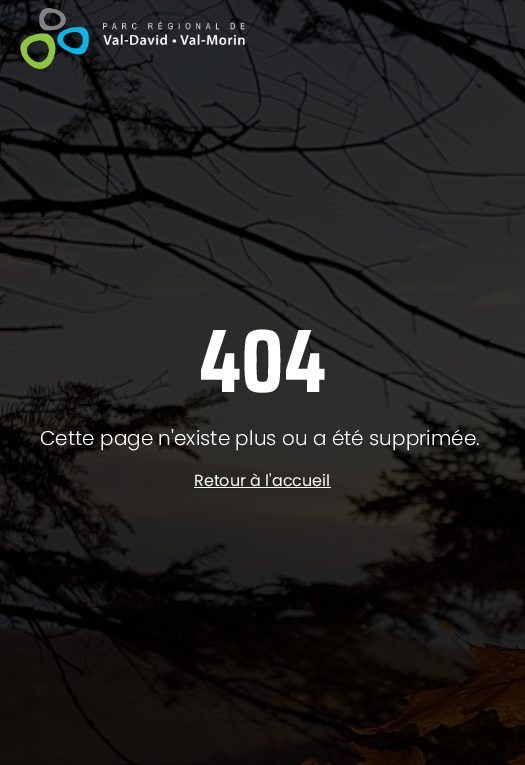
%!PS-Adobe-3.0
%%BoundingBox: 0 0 525 765
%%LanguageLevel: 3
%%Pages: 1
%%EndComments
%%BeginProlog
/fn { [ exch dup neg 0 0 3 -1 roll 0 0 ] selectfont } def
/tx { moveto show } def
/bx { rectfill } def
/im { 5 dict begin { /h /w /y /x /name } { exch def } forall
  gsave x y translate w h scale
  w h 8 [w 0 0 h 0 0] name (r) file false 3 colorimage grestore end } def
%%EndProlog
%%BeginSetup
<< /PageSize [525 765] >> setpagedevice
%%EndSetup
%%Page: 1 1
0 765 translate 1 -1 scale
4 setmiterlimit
1 setgray
0 0 525 765 bx
(image1.raw) 0 0 525 765 im
(image0.raw) 20 8 225 61 im
/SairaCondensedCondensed-Bold 90 fn
(404) 199 392 tx
/Poppins-Light 20 fn
(Cette page n'existe plus ou a été supprimée.) 40 445 tx
/Poppins-Regular 16 fn
(Retour à l'accueil) 194 486 tx
194 487 137 1 bx
showpage
%%EOF
